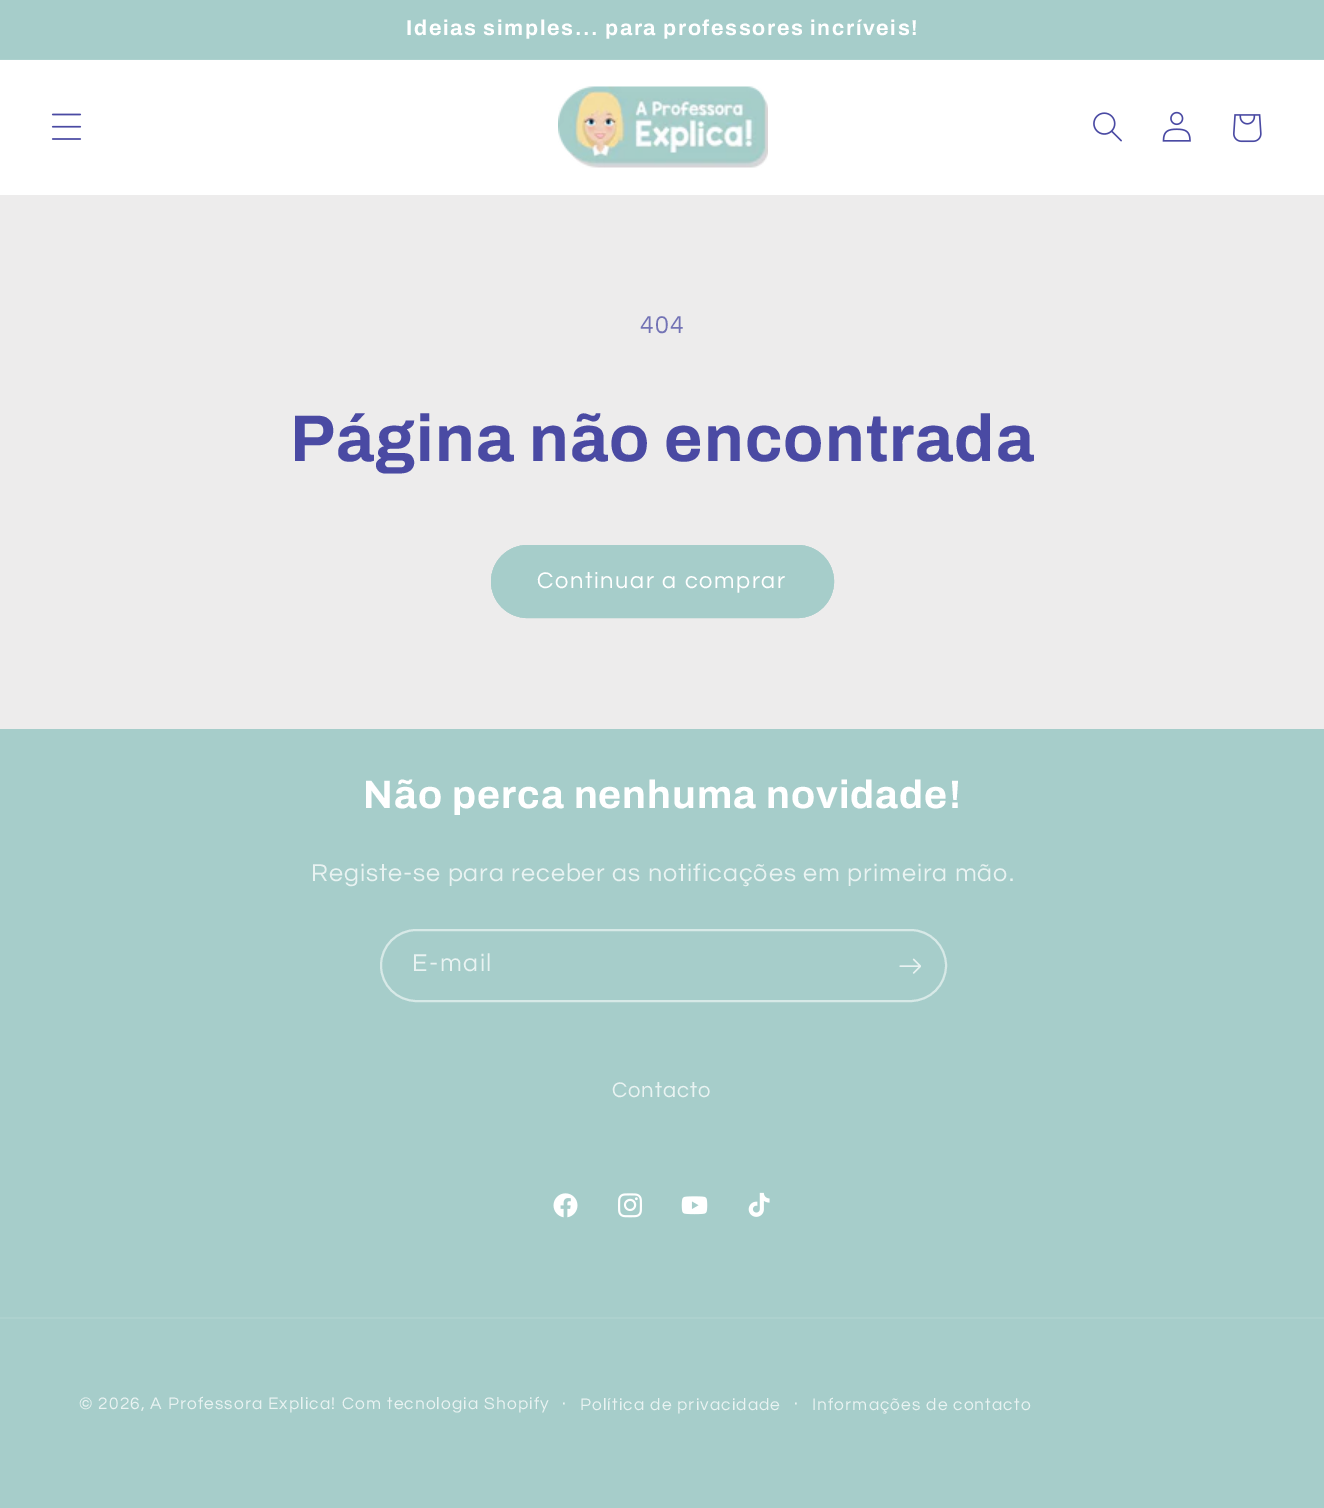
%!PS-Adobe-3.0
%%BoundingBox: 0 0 1324 1508
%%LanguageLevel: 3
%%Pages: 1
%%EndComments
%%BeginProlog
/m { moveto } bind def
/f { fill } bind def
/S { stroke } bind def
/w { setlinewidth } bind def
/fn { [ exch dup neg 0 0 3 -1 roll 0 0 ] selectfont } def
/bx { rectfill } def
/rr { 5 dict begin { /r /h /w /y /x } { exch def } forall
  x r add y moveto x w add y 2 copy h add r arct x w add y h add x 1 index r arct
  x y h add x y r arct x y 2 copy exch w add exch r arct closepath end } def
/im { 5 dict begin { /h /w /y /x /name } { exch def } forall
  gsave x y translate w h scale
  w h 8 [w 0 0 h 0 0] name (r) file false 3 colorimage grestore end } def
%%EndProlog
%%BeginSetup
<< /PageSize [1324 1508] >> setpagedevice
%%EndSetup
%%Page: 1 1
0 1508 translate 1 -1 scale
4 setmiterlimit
0.929 0.925 0.925 setrgbcolor
0 0 1324 1508 bx
0.651 0.804 0.792 setrgbcolor
0 0 1324 59 bx
0.678 0.82 0.808 setrgbcolor
0 59 1324 1 bx
/Archivo-Bold 21.45 fn
1 setgray
406 35 m 1.6 0 (Ideias simples... para professores incríveis!) ashow
0 60 1324 135 bx
(image0.raw) 51 113 31 27 im
(image1.raw) 558 86 210 82 im
(image2.raw) 1093 112 29 30 im
(image3.raw) 1162 111 29 31 im
(image4.raw) 1233 114 29 29 im
/Questrial-Regular 25.2 fn
0.451 0.451 0.71 setrgbcolor
640 333 m 0.95 0 (404) ashow
/Archivo-Bold 66 fn
0.29 0.29 0.639 setrgbcolor
290 461 m 1 0 (Página não encontrada) ashow
0.651 0.804 0.792 setrgbcolor
491 545 343 73 36.5 rr f
2 w
492 546 341 71 35.5 rr S
/Questrial-Regular 23.6 fn
1 setgray
537 588 m 1.6 0 (Continuar a comprar) ashow
0.651 0.804 0.792 setrgbcolor
0 729 1324 779 bx
/Archivo-Bold 39.6 fn
1 setgray
363 808 m 1 0 (Não perca nenhuma novidade!) ashow
/Questrial-Regular 25.2 fn
0.914 0.953 0.949 setrgbcolor
311 881 m 0.95 0 (Registe-se para receber as notificações em primeira mão.) ashow
0.843 0.914 0.906 setrgbcolor
381 930 565 71 35.5 rr S
0.914 0.953 0.949 setrgbcolor
412 971 m 1.6 0 (E-mail) ashow
(image5.raw) 899 958 22 16 im
/Questrial-Regular 22 fn
612 1097 m 0.95 0 (Contacto) ashow
(image6.raw) 553 1193 25 25 im
(image7.raw) 618 1193 24 25 im
(image8.raw) 681 1196 27 19 im
(image9.raw) 748 1192 22 25 im
0.678 0.82 0.808 setrgbcolor
0 1317 1324 2 bx
/Questrial-Regular 17.3 fn
0.914 0.953 0.949 setrgbcolor
79 1409 m 1.1 0 (© 2026, A Professora Explica!) ashow
342 1409 m 1.1 0 (Com tecnologia Shopify) ashow
/Questrial-Regular 19 fn
562 1409 m 1.1 0 (·) ashow
/Questrial-Regular 17.3 fn
580 1410 m 1.1 0 (Política de privacidade) ashow
/Questrial-Regular 19 fn
794 1409 m 1.1 0 (·) ashow
/Questrial-Regular 17.3 fn
812 1410 m 1.1 0 (Informações de contacto) ashow
showpage
%%EOF
